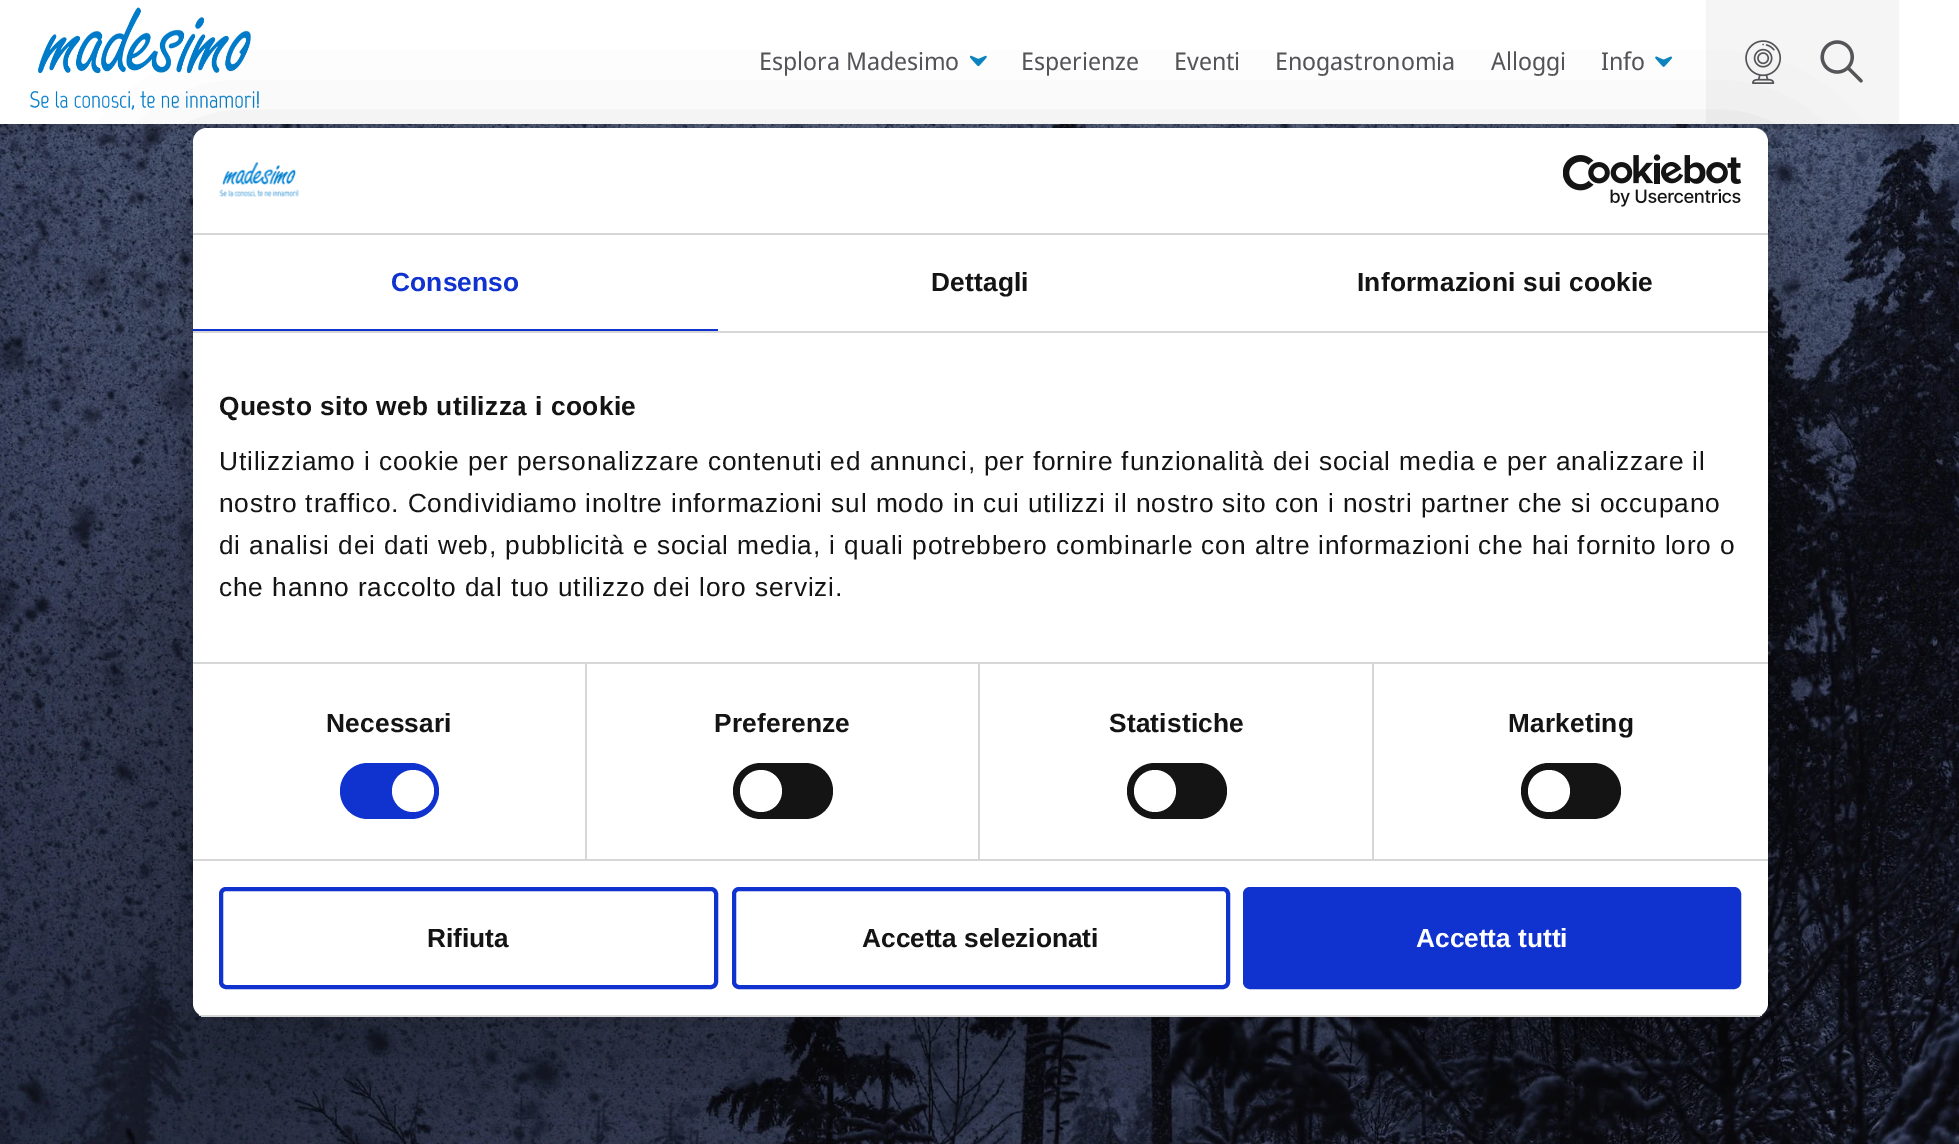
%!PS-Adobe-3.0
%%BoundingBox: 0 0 1959 1144
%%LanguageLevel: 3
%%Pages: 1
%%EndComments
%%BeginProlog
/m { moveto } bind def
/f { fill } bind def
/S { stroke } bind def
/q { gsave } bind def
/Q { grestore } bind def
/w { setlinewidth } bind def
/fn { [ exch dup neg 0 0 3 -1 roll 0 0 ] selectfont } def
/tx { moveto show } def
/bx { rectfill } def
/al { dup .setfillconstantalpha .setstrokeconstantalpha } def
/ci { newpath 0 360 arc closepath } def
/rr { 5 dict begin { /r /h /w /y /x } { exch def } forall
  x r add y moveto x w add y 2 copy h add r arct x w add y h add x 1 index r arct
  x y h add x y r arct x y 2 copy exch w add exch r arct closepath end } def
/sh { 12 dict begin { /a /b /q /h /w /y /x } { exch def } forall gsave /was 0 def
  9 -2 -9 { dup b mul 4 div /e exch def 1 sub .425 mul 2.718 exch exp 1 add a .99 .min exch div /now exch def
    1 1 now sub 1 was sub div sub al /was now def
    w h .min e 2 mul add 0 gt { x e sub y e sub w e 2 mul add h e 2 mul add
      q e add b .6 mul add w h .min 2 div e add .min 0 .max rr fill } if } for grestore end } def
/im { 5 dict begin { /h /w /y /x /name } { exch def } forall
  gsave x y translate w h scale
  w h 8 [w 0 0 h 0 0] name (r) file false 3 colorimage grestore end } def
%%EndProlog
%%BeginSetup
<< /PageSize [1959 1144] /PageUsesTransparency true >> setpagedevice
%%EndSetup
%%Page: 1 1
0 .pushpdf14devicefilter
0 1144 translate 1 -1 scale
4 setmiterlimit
1 setgray
0 0 1959 1144 bx
(image5.raw) 0 124 1959 1020 im
0 setgray
0 5 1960 125 0 5 0.15 sh
1 setgray
0 0 1959 124 bx
(image0.raw) 30 7 229 103 im
/NotoSansDisplay-Regular 24.5 fn
0.333 0.333 0.349 setrgbcolor
(Esplora Madesimo) 759 70 tx
(image1.raw) 969 55 18 12 im
(Esperienze) 1021 70 tx
(Eventi) 1174 70 tx
(Enogastronomia) 1275 70 tx
(Alloggi) 1491 70 tx
(Info) 1601 70 tx
(image2.raw) 1655 56 17 11 im
0.961 setgray
1706 0 193 124 bx
(image3.raw) 1745 40 37 44 im
(image4.raw) 1820 40 43 43 im
0 setgray
193 184 1575 889 14 59.5 0.3 sh
1 setgray
193 128 1575 889 14 rr f
0.839 setgray
193 233 1575 2 bx
(image6.raw) 219 162 80 35 im
(image7.raw) 1563 154 178 53 im
193 331 1575 2 bx
0.063 0.196 0.812 setrgbcolor
193 329 525 2 bx
/LiberationSans-Bold 26.25 fn
391 291 m 0.2 0 (Consenso) ashow
0.078 setgray
931 291 m 0.2 0 (Dettagli) ashow
1357 291 m 0.2 0 (Informazioni sui cookie) ashow
0.839 setgray
585 663 2 196 bx
978 663 2 196 bx
1372 663 2 196 bx
193 662 1575 2 bx
0.078 setgray
219 415 m 0.45 0 (Questo sito web utilizza i cookie) ashow
/LiberationSans-Regular 26.25 fn
219 470 m 0.88 0 (Utilizziamo i cookie per personalizzare contenuti ed annunci, per fornire funzionalità dei social media e per analizzare il) ashow
219 512 m 0.88 0 (nostro traffico. Condividiamo inoltre informazioni sul modo in cui utilizzi il nostro sito con i nostri partner che si occupano) ashow
219 554 m 0.88 0 (di analisi dei dati web, pubblicità e social media, i quali potrebbero combinarle con altre informazioni che hai fornito loro o) ashow
219 596 m 0.88 0 (che hanno raccolto dal tuo utilizzo dei loro servizi.) ashow
0.839 setgray
193 859 1575 2 bx
/LiberationSans-Bold 26.25 fn
0.078 setgray
326 732 m 0.2 0 (Necessari) ashow
0.063 0.196 0.812 setrgbcolor
340 763 99 56 28 rr f
1 setgray
413 791 21 ci f
0.078 setgray
714 732 m 0.2 0 (Preferenze) ashow
733 763 100 56 28 rr f
1 setgray
761 791 21 ci f
0.078 setgray
1109 732 m 0.2 0 (Statistiche) ashow
1127 763 100 56 28 rr f
1 setgray
1155 791 21 ci f
0.078 setgray
1508 732 m 0.2 0 (Marketing) ashow
1521 763 100 56 28 rr f
1 setgray
1549 791 21 ci f
q
193 128 1575 889 14 rr clip newpath
0.839 setgray
193 1015 1575 2 bx
Q
0.063 0.196 0.812 setrgbcolor
4 w
221 889 495 98 5 rr S
0.078 setgray
(Rifiuta) 427 947 tx
0.063 0.196 0.812 setrgbcolor
734 889 494 98 5 rr S
0.078 setgray
(Accetta selezionati) 862 947 tx
0.063 0.196 0.812 setrgbcolor
1245 889 494 98 5 rr q f Q
S
1 setgray
(Accetta tutti) 1416 947 tx
.poppdf14devicefilter showpage
%%EOF
